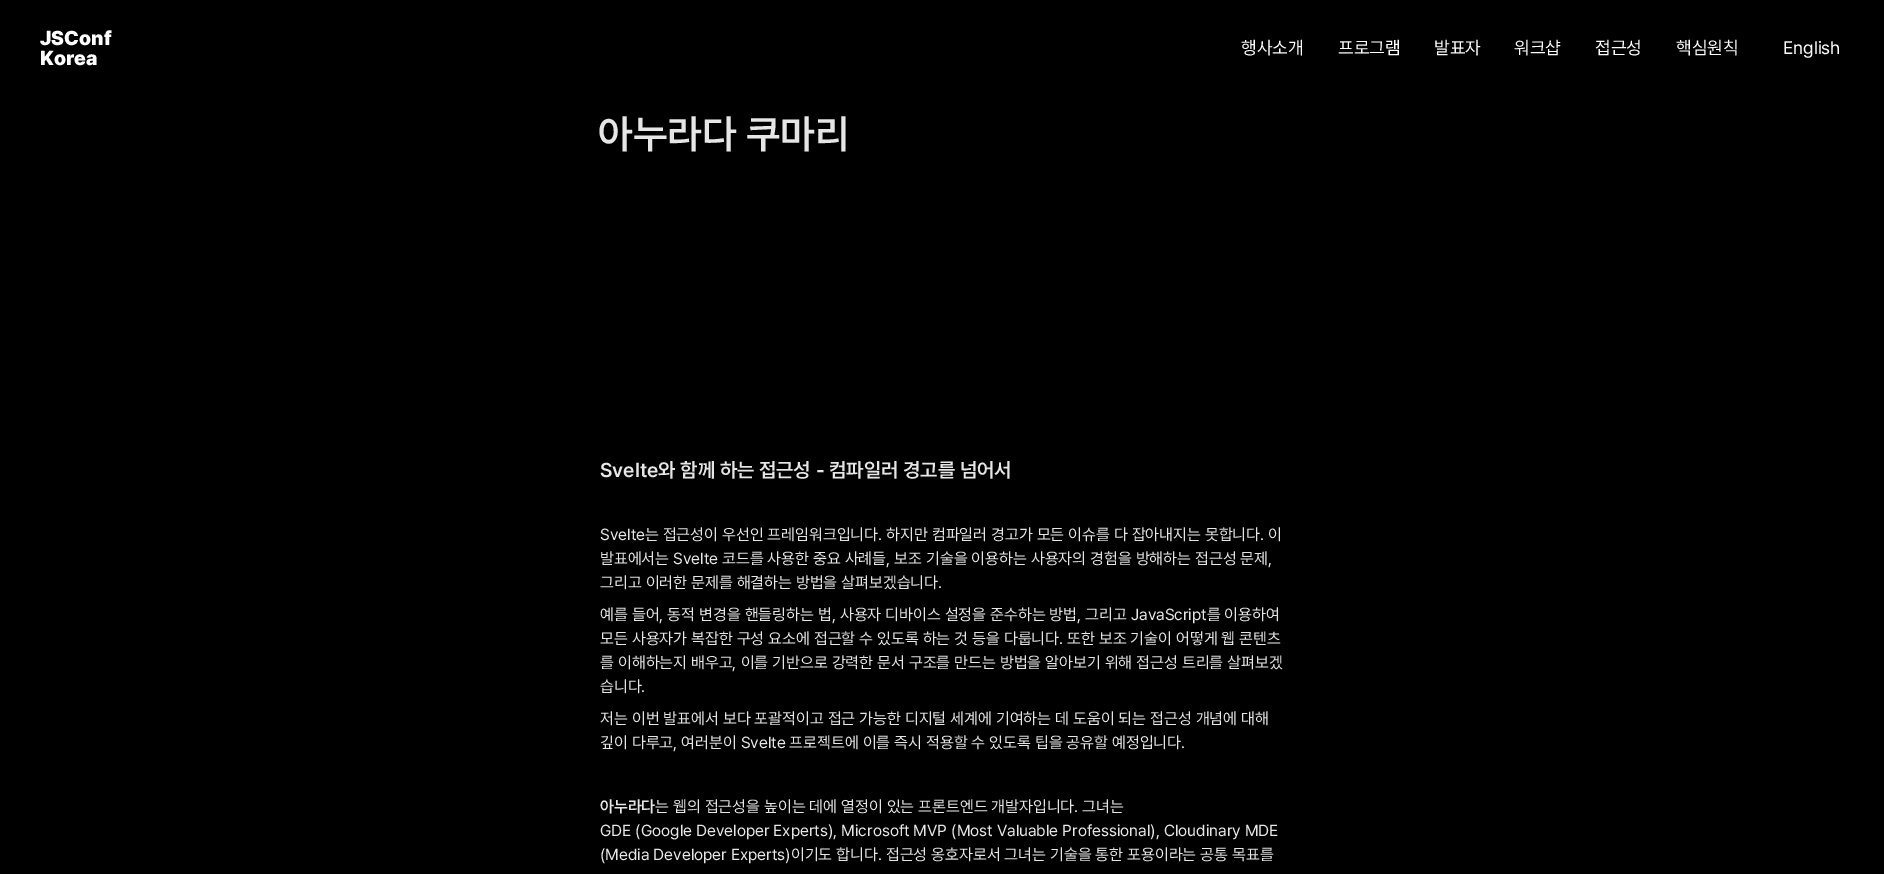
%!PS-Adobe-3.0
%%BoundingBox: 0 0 1884 874
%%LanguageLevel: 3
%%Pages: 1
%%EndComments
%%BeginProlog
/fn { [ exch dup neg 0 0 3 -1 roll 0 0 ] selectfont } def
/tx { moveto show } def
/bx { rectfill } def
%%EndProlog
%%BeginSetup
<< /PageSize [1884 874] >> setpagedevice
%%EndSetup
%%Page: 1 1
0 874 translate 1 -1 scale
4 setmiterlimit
0 setgray
0 0 1884 874 bx
/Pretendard-Black 20 fn
1 setgray
(JSConf) 40 45 tx
(Korea) 40 65 tx
/Pretendard-Regular 18 fn
(행사소개) 1241 54 tx
(프로그램) 1338 54 tx
(발표자) 1434 54 tx
(워크샵) 1514 54 tx
(접근성) 1595 54 tx
(핵심원칙) 1676 54 tx
(English) 1783 54 tx
/Pretendard-SemiBold 40 fn
0.902 setgray
(아누라다 쿠마리) 598 148 tx
/Pretendard-SemiBold 20 fn
(Svelte와 함께 하는 접근성 - 컴파일러 경고를 넘어서) 600 477 tx
/Pretendard-Regular 16 fn
(Svelte는 접근성이 우선인 프레임워크입니다. 하지만 컴파일러 경고가 모든 이슈를 다 잡아내지는 못합니다. 이) 600 540 tx
(발표에서는 Svelte 코드를 사용한 중요 사례들, 보조 기술을 이용하는 사용자의 경험을 방해하는 접근성 문제,) 600 564 tx
(그리고 이러한 문제를 해결하는 방법을 살펴보겠습니다.) 600 588 tx
(예를 들어, 동적 변경을 핸들링하는 법, 사용자 디바이스 설정을 준수하는 방법, 그리고 JavaScript를 이용하여) 600 620 tx
(모든 사용자가 복잡한 구성 요소에 접근할 수 있도록 하는 것 등을 다룹니다. 또한 보조 기술이 어떻게 웹 콘텐츠) 600 644 tx
(를 이해하는지 배우고, 이를 기반으로 강력한 문서 구조를 만드는 방법을 알아보기 위해 접근성 트리를 살펴보겠) 600 668 tx
(습니다.) 600 692 tx
(저는 이번 발표에서 보다 포괄적이고 접근 가능한 디지털 세계에 기여하는 데 도움이 되는 접근성 개념에 대해) 600 724 tx
(깊이 다루고, 여러분이 Svelte 프로젝트에 이를 즉시 적용할 수 있도록 팁을 공유할 예정입니다.) 600 748 tx
/Pretendard-SemiBold 16 fn
(아누라다) 600 812 tx
/Pretendard-Regular 16 fn
(는 웹의 접근성을 높이는 데에 열정이 있는 프론트엔드 개발자입니다. 그녀는) 655 812 tx
(GDE \(Google Developer Experts\), Microsoft MVP \(Most Valuable Professional\), Cloudinary MDE) 600 836 tx
(\(Media Developer Experts\)이기도 합니다. 접근성 옹호자로서 그녀는 기술을 통한 포용이라는 공통 목표를) 600 860 tx
showpage
%%EOF
